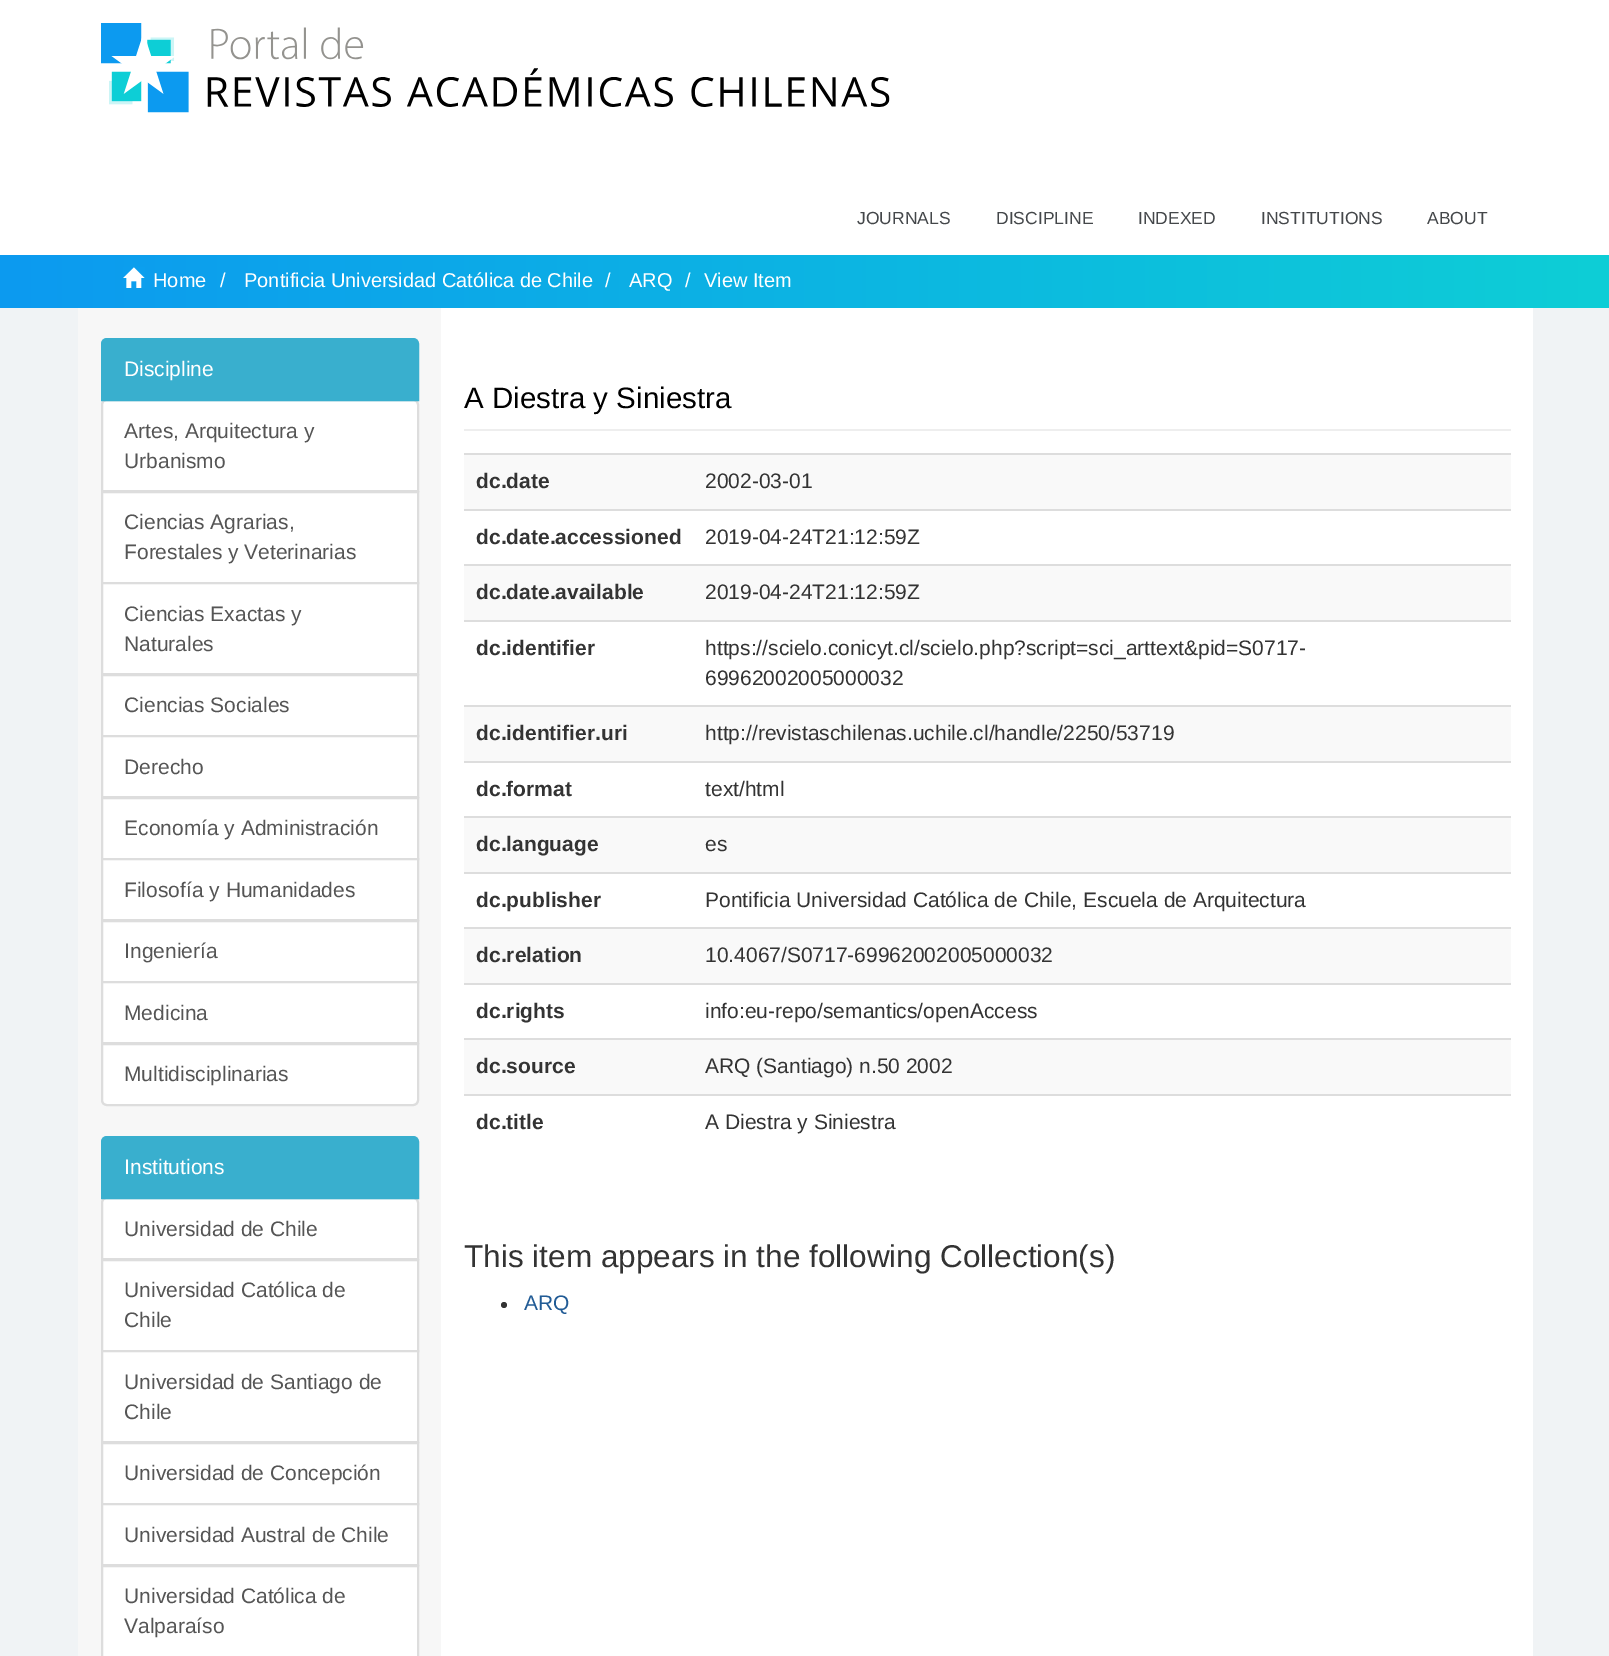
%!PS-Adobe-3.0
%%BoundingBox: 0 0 1609 1656
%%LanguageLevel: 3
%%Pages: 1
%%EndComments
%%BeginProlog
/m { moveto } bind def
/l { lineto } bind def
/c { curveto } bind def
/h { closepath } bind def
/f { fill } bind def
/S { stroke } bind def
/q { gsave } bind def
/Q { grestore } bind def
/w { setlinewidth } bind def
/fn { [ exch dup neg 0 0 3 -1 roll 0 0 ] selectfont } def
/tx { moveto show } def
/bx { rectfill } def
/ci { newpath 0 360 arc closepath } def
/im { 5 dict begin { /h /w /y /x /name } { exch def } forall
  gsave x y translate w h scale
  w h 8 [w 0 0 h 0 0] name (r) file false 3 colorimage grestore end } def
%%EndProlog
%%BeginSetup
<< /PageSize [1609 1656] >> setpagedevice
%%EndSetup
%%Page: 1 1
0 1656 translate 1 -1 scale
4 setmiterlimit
0.941 0.953 0.961 setrgbcolor
0 0 1609 1656 bx
1 setgray
0 0 1609 255 bx
(image0.raw) 101 23 789 90 im
/LiberationSans-Regular 17.5 fn
0.267 0.278 0.29 setrgbcolor
(JOURNALS) 857 224 tx
(DISCIPLINE) 996 224 tx
(INDEXED) 1138 224 tx
(INSTITUTIONS) 1261 224 tx
(ABOUT) 1427 224 tx
q 0 255 m 1609 255 l 1609 308 l 0 308 l h clip newpath
<< /ShadingType 2 /ColorSpace /DeviceRGB /Coords [0 281 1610 281] /Extend [true true] /Function << /FunctionType 2 /Domain [0 1] /C0 [0.047 0.604 0.941] /C1 [0.051 0.808 0.839] /N 1 >> >> shfill Q
(image1.raw) 123 267 22 21 im
/LiberationSans-Regular 20 fn
1 setgray
(Home) 153 287 tx
(/) 220 287 tx
(Pontificia Universidad Católica de Chile) 244 287 tx
(/) 605 287 tx
(ARQ) 629 287 tx
(/) 685 287 tx
(View Item) 704 287 tx
0.969 setgray
78 308 363 1348 bx
1 setgray
107 400 m 413 400 l 416 400 418 402 418 405 c 418 491 l 102 491 l 102 405 l 102 402 104 400 107 400 c h q f Q
0.867 setgray
2 w
S
0.224 0.686 0.808 setrgbcolor
107 339 m 413 339 l 416 339 418 341 418 344 c 418 400 l 102 400 l 102 344 l 102 341 104 339 107 339 c h q f Q
S
/LiberationSans-Regular 21 fn
1 setgray
(Discipline) 124 376 tx
0.333 setgray
(Artes, Arquitectura y) 124 438 tx
(Urbanismo) 124 468 tx
1 setgray
102 492 m 418 492 l 418 583 l 102 583 l h q f Q
0.867 setgray
S
0.333 setgray
(Ciencias Agrarias,) 124 529 tx
(Forestales y Veterinarias) 124 559 tx
1 setgray
102 583 m 418 583 l 418 674 l 102 674 l h q f Q
0.867 setgray
S
0.333 setgray
(Ciencias Exactas y) 124 621 tx
(Naturales) 124 651 tx
1 setgray
102 675 m 418 675 l 418 736 l 102 736 l h q f Q
0.867 setgray
S
0.333 setgray
(Ciencias Sociales) 124 712 tx
1 setgray
102 736 m 418 736 l 418 797 l 102 797 l h q f Q
0.867 setgray
S
0.333 setgray
(Derecho) 124 774 tx
1 setgray
102 798 m 418 798 l 418 859 l 102 859 l h q f Q
0.867 setgray
S
0.333 setgray
(Economía y Administración) 124 835 tx
1 setgray
102 859 m 418 859 l 418 920 l 102 920 l h q f Q
0.867 setgray
S
0.333 setgray
(Filosofía y Humanidades) 124 897 tx
1 setgray
102 921 m 418 921 l 418 982 l 102 982 l h q f Q
0.867 setgray
S
0.333 setgray
(Ingeniería) 124 958 tx
1 setgray
102 982 m 418 982 l 418 1043 l 102 1043 l h q f Q
0.867 setgray
S
0.333 setgray
(Medicina) 124 1020 tx
1 setgray
102 1044 m 418 1044 l 418 1100 l 418 1103 416 1105 413 1105 c 107 1105 l 104 1105 102 1103 102 1100 c h q f Q
0.867 setgray
S
0.333 setgray
(Multidisciplinarias) 124 1081 tx
1 setgray
107 1198 m 413 1198 l 416 1198 418 1200 418 1203 c 418 1259 l 102 1259 l 102 1203 l 102 1200 104 1198 107 1198 c h q f Q
0.867 setgray
S
0.224 0.686 0.808 setrgbcolor
107 1137 m 413 1137 l 416 1137 418 1139 418 1142 c 418 1198 l 102 1198 l 102 1142 l 102 1139 104 1137 107 1137 c h q f Q
S
1 setgray
(Institutions) 124 1174 tx
0.333 setgray
(Universidad de Chile) 124 1236 tx
1 setgray
102 1260 m 418 1260 l 418 1351 l 102 1351 l h q f Q
0.867 setgray
S
0.333 setgray
(Universidad Católica de) 124 1297 tx
(Chile) 124 1327 tx
1 setgray
102 1351 m 418 1351 l 418 1442 l 102 1442 l h q f Q
0.867 setgray
S
0.333 setgray
(Universidad de Santiago de) 124 1389 tx
(Chile) 124 1419 tx
1 setgray
102 1443 m 418 1443 l 418 1504 l 102 1504 l h q f Q
0.867 setgray
S
0.333 setgray
(Universidad de Concepción) 124 1480 tx
1 setgray
102 1504 m 418 1504 l 418 1565 l 102 1565 l h q f Q
0.867 setgray
S
0.333 setgray
(Universidad Austral de Chile) 124 1542 tx
1 setgray
102 1566 m 418 1566 l 418 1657 l 102 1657 l h q f Q
0.867 setgray
S
0.333 setgray
(Universidad Católica de) 124 1603 tx
(Valparaíso) 124 1633 tx
1 setgray
441 308 1092 1348 bx
0.933 setgray
464 429 1047 2 bx
/LiberationSans-Regular 29.5 fn
0 setgray
(A Diestra y Siniestra) 464 408 tx
0.976 setgray
464 455 1047 54 bx
0.867 setgray
464 453 1047 2 bx
/LiberationSans-Bold 21 fn
0.2 setgray
(dc.date) 476 488 tx
/LiberationSans-Regular 21 fn
(2002-03-01) 705 488 tx
0.867 setgray
464 509 1047 2 bx
/LiberationSans-Bold 21 fn
0.2 setgray
(dc.date.accessioned) 476 544 tx
/LiberationSans-Regular 21 fn
(2019-04-24T21:12:59Z) 705 544 tx
0.976 setgray
464 566 1047 54 bx
0.867 setgray
464 564 1047 2 bx
/LiberationSans-Bold 21 fn
0.2 setgray
(dc.date.available) 476 599 tx
/LiberationSans-Regular 21 fn
(2019-04-24T21:12:59Z) 705 599 tx
0.867 setgray
464 620 1047 2 bx
/LiberationSans-Bold 21 fn
0.2 setgray
(dc.identifier) 476 655 tx
/LiberationSans-Regular 21 fn
(https://scielo.conicyt.cl/scielo.php?script=sci_arttext&pid=S0717-) 705 655 tx
(69962002005000032) 705 685 tx
0.976 setgray
464 707 1047 54 bx
0.867 setgray
464 705 1047 2 bx
/LiberationSans-Bold 21 fn
0.2 setgray
(dc.identifier.uri) 476 740 tx
/LiberationSans-Regular 21 fn
(http://revistaschilenas.uchile.cl/handle/2250/53719) 705 740 tx
0.867 setgray
464 761 1047 2 bx
/LiberationSans-Bold 21 fn
0.2 setgray
(dc.format) 476 796 tx
/LiberationSans-Regular 21 fn
(text/html) 705 796 tx
0.976 setgray
464 818 1047 54 bx
0.867 setgray
464 816 1047 2 bx
/LiberationSans-Bold 21 fn
0.2 setgray
(dc.language) 476 851 tx
/LiberationSans-Regular 21 fn
(es) 705 851 tx
0.867 setgray
464 872 1047 2 bx
/LiberationSans-Bold 21 fn
0.2 setgray
(dc.publisher) 476 907 tx
/LiberationSans-Regular 21 fn
(Pontificia Universidad Católica de Chile, Escuela de Arquitectura) 705 907 tx
0.976 setgray
464 929 1047 54 bx
0.867 setgray
464 927 1047 2 bx
/LiberationSans-Bold 21 fn
0.2 setgray
(dc.relation) 476 962 tx
/LiberationSans-Regular 21 fn
(10.4067/S0717-69962002005000032) 705 962 tx
0.867 setgray
464 983 1047 2 bx
/LiberationSans-Bold 21 fn
0.2 setgray
(dc.rights) 476 1018 tx
/LiberationSans-Regular 21 fn
(info:eu-repo/semantics/openAccess) 705 1018 tx
0.976 setgray
464 1040 1047 54 bx
0.867 setgray
464 1038 1047 2 bx
/LiberationSans-Bold 21 fn
0.2 setgray
(dc.source) 476 1073 tx
/LiberationSans-Regular 21 fn
(ARQ \(Santiago\) n.50 2002) 705 1073 tx
0.867 setgray
464 1094 1047 2 bx
/LiberationSans-Bold 21 fn
0.2 setgray
(dc.title) 476 1129 tx
/LiberationSans-Regular 21 fn
(A Diestra y Siniestra) 705 1129 tx
/LiberationSans-Regular 31.5 fn
(This item appears in the following Collection\(s\)) 464 1267 tx
504 1305 3 ci f
/LiberationSans-Regular 21 fn
0.129 0.357 0.584 setrgbcolor
(ARQ) 524 1310 tx
showpage
%%EOF
